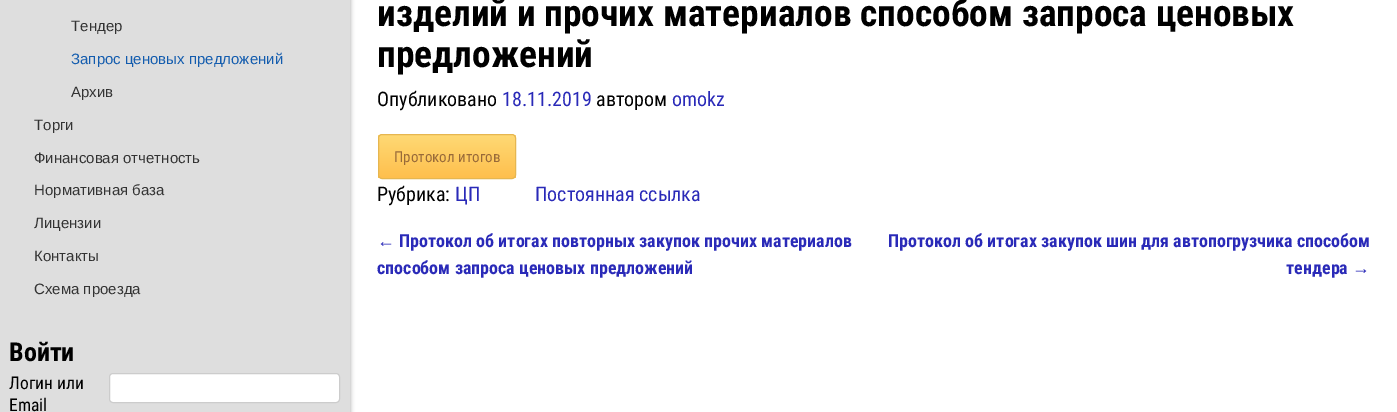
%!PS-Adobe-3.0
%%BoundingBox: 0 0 1397 412
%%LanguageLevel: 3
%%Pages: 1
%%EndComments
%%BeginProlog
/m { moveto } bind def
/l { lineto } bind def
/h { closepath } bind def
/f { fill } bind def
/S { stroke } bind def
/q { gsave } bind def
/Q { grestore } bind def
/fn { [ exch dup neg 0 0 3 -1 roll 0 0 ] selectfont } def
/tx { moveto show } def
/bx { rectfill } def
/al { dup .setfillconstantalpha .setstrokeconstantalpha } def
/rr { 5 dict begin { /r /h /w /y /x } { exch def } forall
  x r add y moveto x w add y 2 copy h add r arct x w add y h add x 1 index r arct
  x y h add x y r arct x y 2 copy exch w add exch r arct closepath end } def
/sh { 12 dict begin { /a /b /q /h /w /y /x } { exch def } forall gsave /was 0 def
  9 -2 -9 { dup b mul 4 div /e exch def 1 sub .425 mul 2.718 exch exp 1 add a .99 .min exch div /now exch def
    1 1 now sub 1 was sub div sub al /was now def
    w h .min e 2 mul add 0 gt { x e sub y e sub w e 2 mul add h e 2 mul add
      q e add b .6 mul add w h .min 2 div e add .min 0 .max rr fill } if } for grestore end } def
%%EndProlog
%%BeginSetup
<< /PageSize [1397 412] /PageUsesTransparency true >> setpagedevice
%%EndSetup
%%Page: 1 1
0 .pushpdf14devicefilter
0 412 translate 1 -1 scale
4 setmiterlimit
1 setgray
0 0 1397 412 bx
0 setgray
-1 -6 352 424 0 2 0.25 sh
0.871 setgray
0 0 350 412 bx
/Arimo-Regular 15 fn
0.2 setgray
(Тендер) 71 31 tx
0.075 0.361 0.682 setrgbcolor
(Запрос ценовых предложений) 71 64 tx
0.2 setgray
(Архив) 71 97 tx
(Торги) 34 130 tx
(Финансовая отчетность) 34 163 tx
(Нормативная база) 34 195 tx
(Лицензии) 34 228 tx
(Контакты) 34 261 tx
(Схема проезда) 34 294 tx
/RobotoCondensed-Bold 26 fn
0 setgray
(Войти) 9 361 tx
/RobotoCondensed-Regular 17.5 fn
(Логин или) 9 389 tx
(Email) 9 411 tx
1 setgray
109.5 373.5 230 29 3.5 rr q f Q
0.8 setgray
S
/RobotoCondensed-Bold 37.5 fn
0 setgray
(изделий и прочих материалов способом запроса ценовых) 377 26 tx
(предложений) 377 67 tx
/RobotoCondensed-Regular 20 fn
(Опубликовано) 377 106 tx
0.165 0.165 0.722 setrgbcolor
(18.11.2019) 502 106 tx
0 setgray
(автором) 596 106 tx
0.165 0.165 0.722 setrgbcolor
(omokz) 672 106 tx
q
378 134 138 45 4 rr clip newpath
q 378 135 m 516 135 l 516 178 l 378 178 l h clip newpath
<< /ShadingType 2 /ColorSpace /DeviceRGB /Coords [447 135 447 178] /Extend [true true] /Function << /FunctionType 2 /Domain [0 1] /C0 [1 0.851 0.455] /C1 [0.996 0.749 0.302] /N 1 >> >> shfill Q
Q
0.902 0.714 0.314 setrgbcolor
378.5 134.5 137 44 3.5 rr S
/RobotoCondensed-Regular 15 fn
0.596 0.416 0.224 setrgbcolor
(Протокол итогов) 394 162 tx
/RobotoCondensed-Regular 20 fn
0 setgray
(Рубрика:) 377 201 tx
0.165 0.165 0.722 setrgbcolor
(ЦП) 455 201 tx
(Постоянная ссылка) 535 201 tx
/LiberationSans-Regular 18 fn
(←) 377 247 tx
/RobotoCondensed-Bold 18 fn
(Протокол об итогах повторных закупок прочих материалов) 399 247 tx
(способом запроса ценовых предложений) 377 274 tx
(Протокол об итогах закупок шин для автопогрузчика способом) 888 247 tx
(тендера) 1286 274 tx
/LiberationSans-Regular 18 fn
(→) 1352 274 tx
.poppdf14devicefilter showpage
%%EOF
